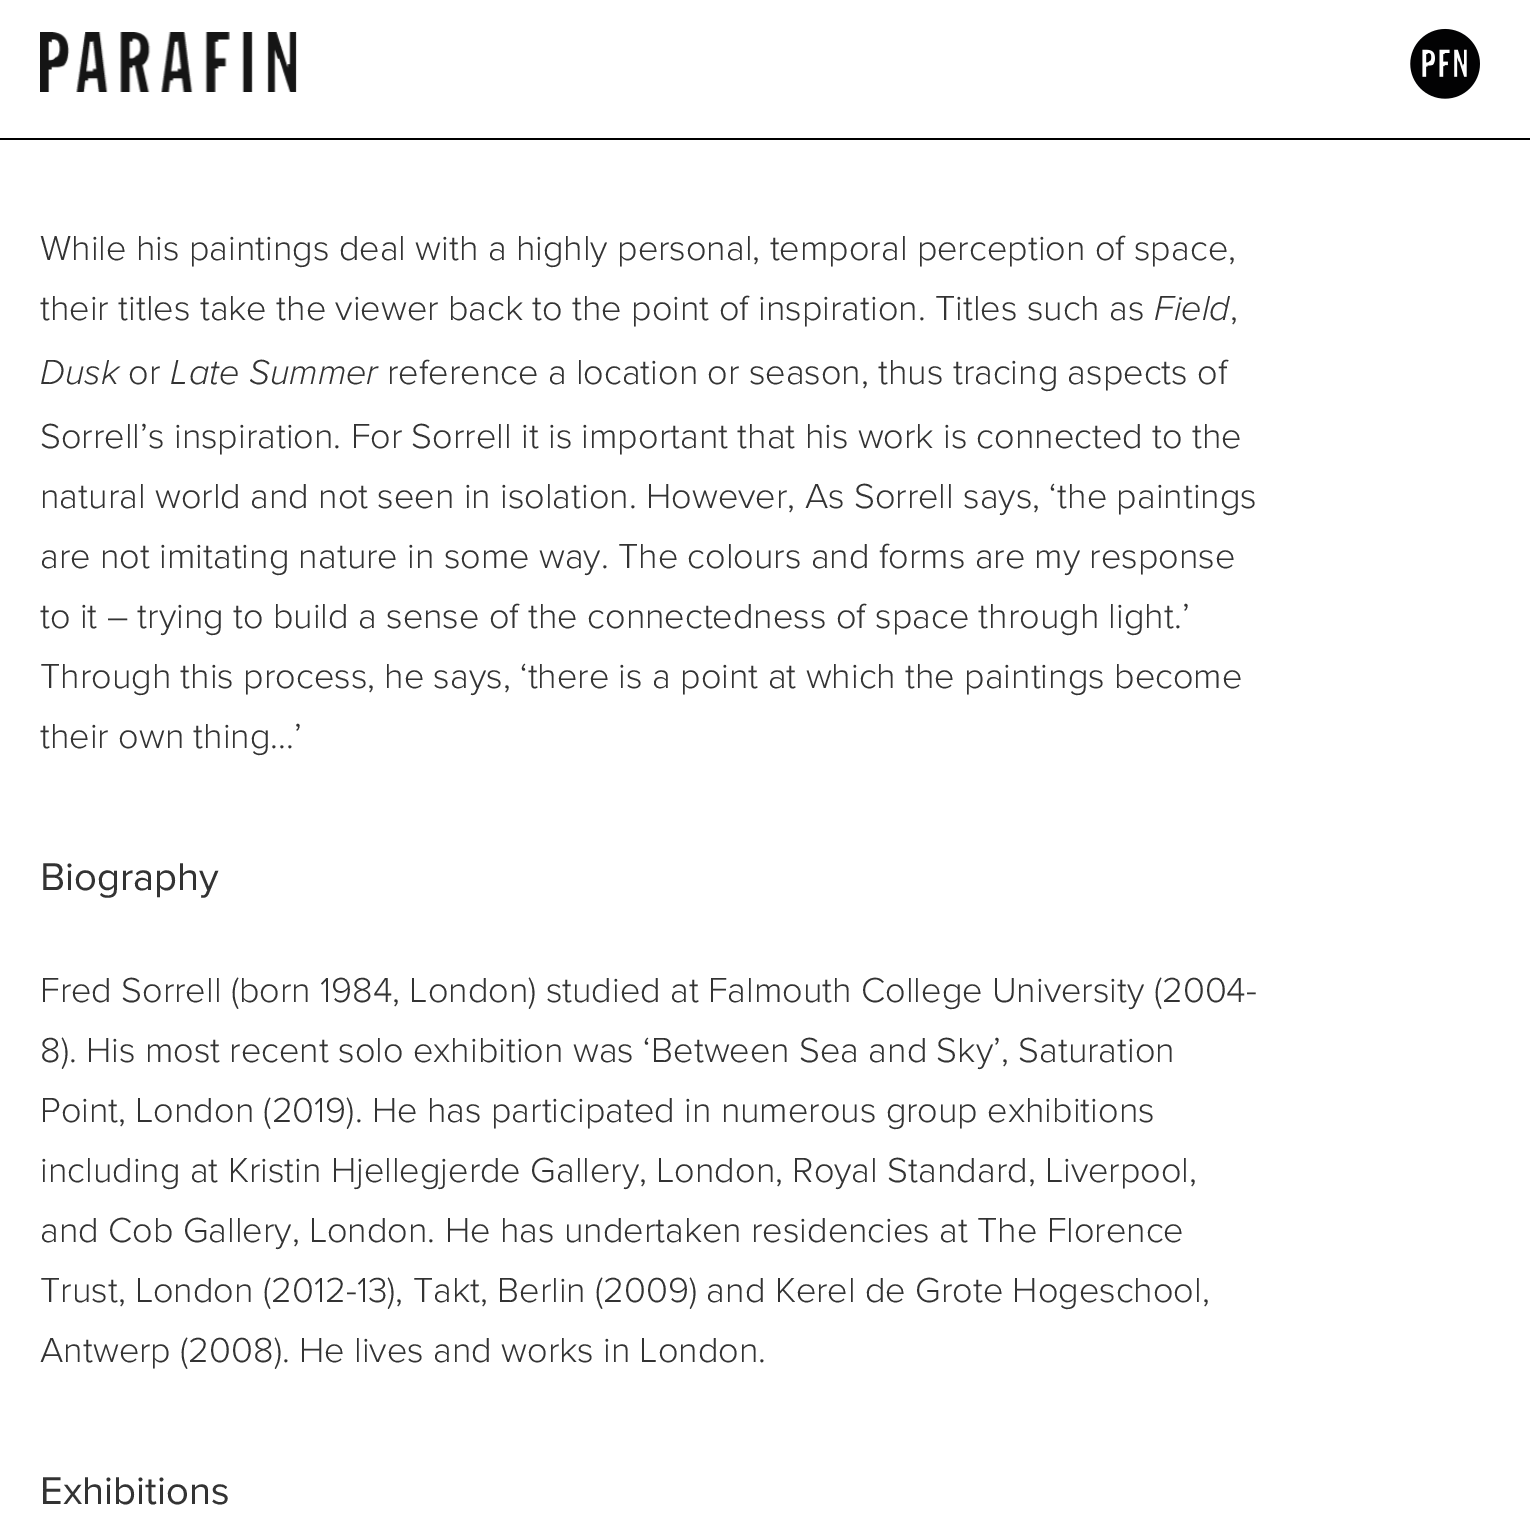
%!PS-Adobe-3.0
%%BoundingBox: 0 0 1530 1538
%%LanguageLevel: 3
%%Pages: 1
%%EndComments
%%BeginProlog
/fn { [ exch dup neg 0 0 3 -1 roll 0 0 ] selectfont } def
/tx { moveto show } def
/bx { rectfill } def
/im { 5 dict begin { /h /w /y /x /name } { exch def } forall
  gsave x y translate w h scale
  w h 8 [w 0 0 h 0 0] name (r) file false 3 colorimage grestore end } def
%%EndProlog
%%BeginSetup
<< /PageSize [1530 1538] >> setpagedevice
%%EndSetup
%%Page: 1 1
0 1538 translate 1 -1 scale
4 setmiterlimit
1 setgray
0 0 1530 1538 bx
0 setgray
0 138 1530 2 bx
(image0.raw) 40 32 257 60 im
(image1.raw) 1410 28 70 71 im
/ProximaNova-Light 36 fn
0.2 setgray
(While his paintings deal with a highly personal, temporal perception of space,) 40 260 tx
(their titles take the viewer back to the point of inspiration. Titles such as) 40 320 tx
/ProximaNova-LightItalic 36 fn
(Field) 1154 320 tx
/ProximaNova-Light 36 fn
(,) 1230 320 tx
/ProximaNova-LightItalic 36 fn
(Dusk) 40 384 tx
/ProximaNova-Light 36 fn
(or) 128 384 tx
/ProximaNova-LightItalic 36 fn
(Late Summer) 170 384 tx
/ProximaNova-Light 36 fn
(reference a location or season, thus tracing aspects of) 387 384 tx
(Sorrell’s inspiration. For Sorrell it is important that his work is connected to the) 40 448 tx
(natural world and not seen in isolation. However, As Sorrell says, ‘the paintings) 40 508 tx
(are not imitating nature in some way. The colours and forms are my response) 40 568 tx
(to it – trying to build a sense of the connectedness of space through light.’) 40 628 tx
(Through this process, he says, ‘there is a point at which the paintings become) 40 688 tx
(their own thing...’) 40 748 tx
/ProximaNova-Regular 40 fn
(Biography) 40 890 tx
/ProximaNova-Light 36 fn
(Fred Sorrell \(born 1984, London\) studied at Falmouth College University \(2004-) 40 1002 tx
(8\). His most recent solo exhibition was ‘Between Sea and Sky’, Saturation) 40 1062 tx
(Point, London \(2019\). He has participated in numerous group exhibitions) 40 1122 tx
(including at Kristin Hjellegjerde Gallery, London, Royal Standard, Liverpool,) 40 1182 tx
(and Cob Gallery, London. He has undertaken residencies at The Florence) 40 1242 tx
(Trust, London \(2012-13\), Takt, Berlin \(2009\) and Kerel de Grote Hogeschool,) 40 1302 tx
(Antwerp \(2008\). He lives and works in London.) 40 1362 tx
/ProximaNova-Regular 40 fn
(Exhibitions) 40 1504 tx
showpage
%%EOF
